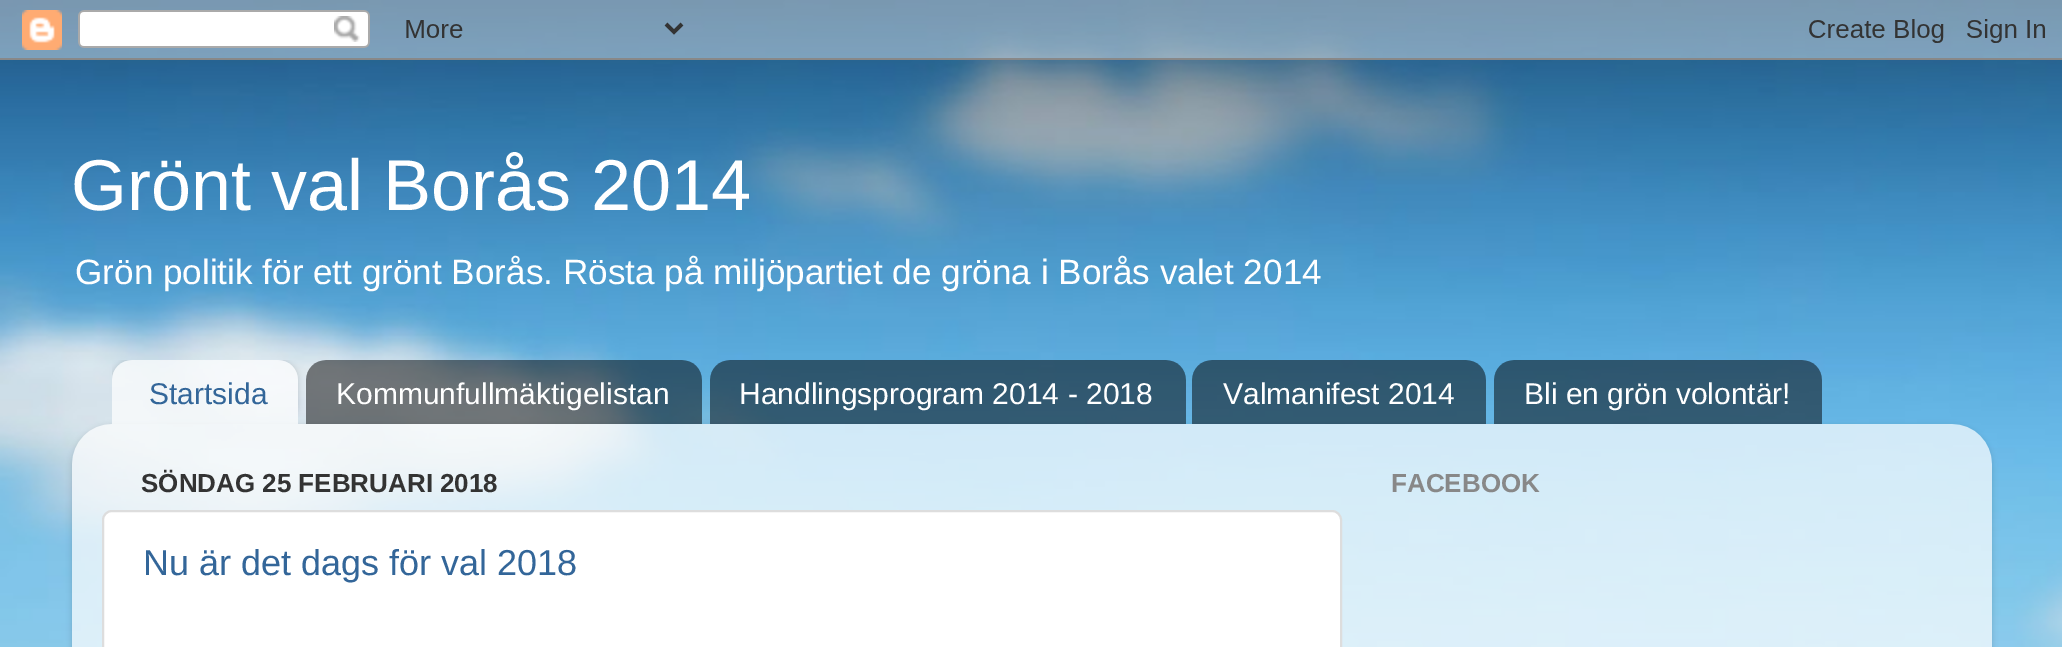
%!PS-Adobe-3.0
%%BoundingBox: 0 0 2062 647
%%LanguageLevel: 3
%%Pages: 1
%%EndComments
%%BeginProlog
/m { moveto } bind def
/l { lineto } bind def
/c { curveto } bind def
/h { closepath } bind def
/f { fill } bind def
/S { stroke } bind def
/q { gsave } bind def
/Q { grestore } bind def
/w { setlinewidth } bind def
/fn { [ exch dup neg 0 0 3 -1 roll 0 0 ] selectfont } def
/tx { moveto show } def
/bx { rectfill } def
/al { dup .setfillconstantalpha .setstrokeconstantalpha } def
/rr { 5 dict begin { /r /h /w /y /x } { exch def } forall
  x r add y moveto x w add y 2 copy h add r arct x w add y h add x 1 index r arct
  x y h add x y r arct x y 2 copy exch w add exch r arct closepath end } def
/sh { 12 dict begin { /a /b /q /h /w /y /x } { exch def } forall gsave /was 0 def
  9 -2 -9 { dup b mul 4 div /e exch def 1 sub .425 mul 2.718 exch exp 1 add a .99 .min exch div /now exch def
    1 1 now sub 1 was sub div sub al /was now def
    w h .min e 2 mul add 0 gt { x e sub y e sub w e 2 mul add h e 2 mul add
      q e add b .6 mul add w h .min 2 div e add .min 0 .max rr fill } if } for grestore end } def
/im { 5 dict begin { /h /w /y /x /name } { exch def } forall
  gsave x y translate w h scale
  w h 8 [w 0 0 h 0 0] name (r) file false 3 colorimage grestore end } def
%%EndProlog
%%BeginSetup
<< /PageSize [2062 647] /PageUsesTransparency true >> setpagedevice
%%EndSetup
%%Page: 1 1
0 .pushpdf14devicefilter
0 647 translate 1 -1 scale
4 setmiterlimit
1 setgray
0 0 2062 647 bx
(image0.raw) 0 0 2062 647 im
(image1.raw) 0 0 2062 60 im
/LiberationSans-Regular 72 fn
(Grönt val Borås 2014) 71 210 tx
/LiberationSans-Regular 35.1 fn
(Grön politik för ett grönt Borås. Rösta på miljöpartiet de gröna i Borås valet 2014) 75 284 tx
(image3.raw) 306 360 396 64 im
(image4.raw) 710 360 476 64 im
(image5.raw) 1192 360 294 64 im
(image6.raw) 1494 360 328 64 im
q
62 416 m 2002 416 l 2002 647 l 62 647 l h 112 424 m 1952 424 l 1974 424 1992 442 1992 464 c 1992 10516 l 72 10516 l 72 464 l 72 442 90 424 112 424 c h eoclip newpath
0 setgray
72 426 1920 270 40 3 0.15 sh
Q
(image7.raw) 72 424 1920 223 im
q
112 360 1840 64 rectclip
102 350 m 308 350 l 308 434 l 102 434 l h 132 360 m 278 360 l 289 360 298 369 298 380 c 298 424 l 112 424 l 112 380 l 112 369 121 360 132 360 c h eoclip newpath
0 setgray
112 360 186 64 20 3 0.15 sh
Q
(image2.raw) 112 360 186 64 im
/LiberationSans-Regular 30 fn
0.2 0.4 0.6 setrgbcolor
(Startsida) 149 404 tx
1 setgray
(Kommunfullmäktigelistan) 336 404 tx
(Handlingsprogram 2014 - 2018) 739 404 tx
(Valmanifest 2014) 1223 404 tx
(Bli en grön volontär!) 1524 404 tx
/LiberationSans-Bold 26 fn
0.2 setgray
(SÖNDAG 25 FEBRUARI 2018) 141 492 tx
1 setgray
103 511 1238 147 9 rr q f Q
0.867 setgray
2 w
S
/LiberationSans-Regular 36 fn
0.2 0.4 0.6 setrgbcolor
(Nu är det dags för val 2018) 143 575 tx
/LiberationSans-Bold 26 fn
0.533 setgray
(FACEBOOK) 1391 492 tx
.poppdf14devicefilter showpage
%%EOF
